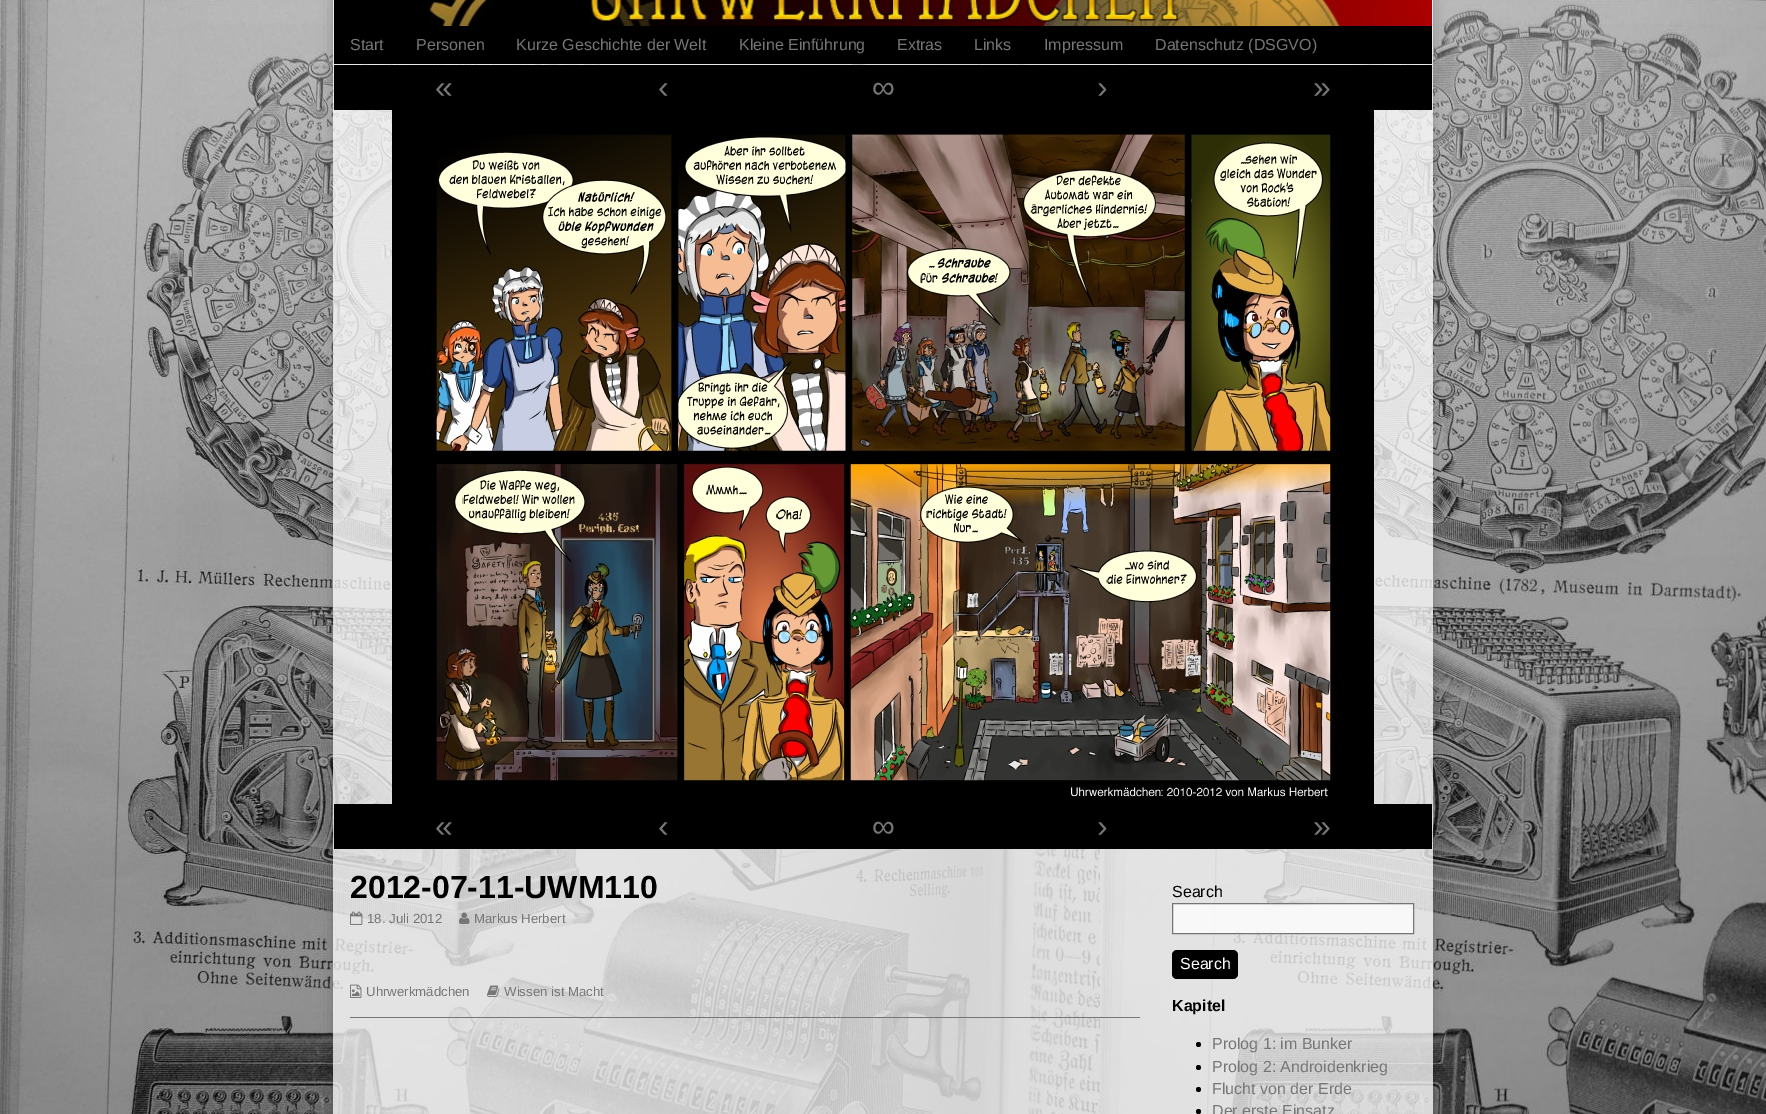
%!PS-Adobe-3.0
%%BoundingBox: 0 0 1766 1114
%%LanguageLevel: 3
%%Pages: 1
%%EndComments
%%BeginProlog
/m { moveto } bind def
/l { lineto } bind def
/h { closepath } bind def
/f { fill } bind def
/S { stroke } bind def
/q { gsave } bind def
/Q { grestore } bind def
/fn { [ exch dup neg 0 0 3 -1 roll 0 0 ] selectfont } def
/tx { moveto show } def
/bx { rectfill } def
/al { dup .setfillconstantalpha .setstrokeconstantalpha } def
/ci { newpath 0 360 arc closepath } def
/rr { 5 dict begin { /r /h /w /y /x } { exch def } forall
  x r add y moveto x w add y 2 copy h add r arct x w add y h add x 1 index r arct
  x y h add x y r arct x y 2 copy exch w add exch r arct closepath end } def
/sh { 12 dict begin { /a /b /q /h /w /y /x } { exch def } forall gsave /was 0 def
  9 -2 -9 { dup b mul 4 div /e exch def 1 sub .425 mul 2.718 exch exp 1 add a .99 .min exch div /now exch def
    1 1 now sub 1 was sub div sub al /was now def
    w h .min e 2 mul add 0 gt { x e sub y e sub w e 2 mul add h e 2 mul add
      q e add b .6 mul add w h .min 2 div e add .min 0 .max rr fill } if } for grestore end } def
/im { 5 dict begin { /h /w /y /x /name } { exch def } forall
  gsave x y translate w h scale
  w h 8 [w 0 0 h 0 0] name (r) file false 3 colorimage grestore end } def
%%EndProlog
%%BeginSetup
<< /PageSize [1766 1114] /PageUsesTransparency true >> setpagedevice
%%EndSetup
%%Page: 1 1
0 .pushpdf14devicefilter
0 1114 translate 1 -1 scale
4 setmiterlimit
1 setgray
0 0 1766 1114 bx
(image0.raw) 0 0 1766 1114 im
q
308 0 m 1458 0 l 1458 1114 l 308 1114 l h 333 -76 m 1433 -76 l 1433 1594 l 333 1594 l h eoclip newpath
0 setgray
333 -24 1100 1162 0 8 0.2 sh
Q
0.75 al
333 0 1100 1114 bx
1 al
(image1.raw) 334 0 1098 26 im
0 setgray
334 26 1098 38 bx
/LiberationSans-Regular 16 fn
0.463 setgray
(Start) 350 50 tx
(Personen) 416 50 tx
(Kurze Geschichte der Welt) 516 50 tx
(Kleine Einführung) 739 50 tx
(Extras) 897 50 tx
(Links) 974 50 tx
(Impressum) 1044 50 tx
(Datenschutz \(DSGVO\)) 1155 50 tx
0 setgray
334 65 1098 45 bx
/LiberationSans-Regular 32 fn
0.463 setgray
(«) 435 98 tx
(‹) 658 98 tx
(∞) 872 98 tx
(›) 1097 98 tx
(») 1313 98 tx
(image2.raw) 392 110 982 694 im
0 setgray
334 804 1098 45 bx
0.463 setgray
(«) 435 837 tx
(‹) 658 837 tx
(∞) 872 837 tx
(›) 1097 837 tx
(») 1313 837 tx
/LiberationSans-Bold 32 fn
0 setgray
(2012-07-11-UWM110) 350 898 tx
(image3.raw) 350 911 13 14 im
/LiberationSans-Regular 13.25 fn
0.463 setgray
(18. Juli 2012) 367 923 tx
(image4.raw) 459 912 11 12 im
(Markus Herbert) 474 923 tx
350 1017 790 1 bx
(image5.raw) 350 984 12 14 im
(Uhrwerkmädchen) 366 996 tx
(image6.raw) 487 985 13 12 im
(Wissen ist Macht) 504 996 tx
/LiberationSans-Regular 16 fn
0 setgray
(Search) 1172 897 tx
0.75 al
1 setgray
1172.5 903.5 m 1413.5 903.5 l 1413.5 933.5 l 1172.5 933.5 l h f
1 al
0.463 setgray
1172.5 903.5 m 1413.5 903.5 l 1413.5 933.5 l 1172.5 933.5 l h S
0 setgray
1172 950 66 29 5 rr f
1 setgray
(Search) 1180 969 tx
/LiberationSans-Bold 16 fn
0 setgray
(Kapitel) 1172 1011 tx
1198.5 1044.5 2.5 ci f
/LiberationSans-Regular 16 fn
0.463 setgray
(Prolog 1: im Bunker) 1212 1049 tx
0 setgray
1198.5 1067.5 2.5 ci f
0.463 setgray
(Prolog 2: Androidenkrieg) 1212 1072 tx
0 setgray
1198.5 1089.5 2.5 ci f
0.463 setgray
(Flucht von der Erde) 1212 1094 tx
0 setgray
1198.5 1111.5 2.5 ci f
0.463 setgray
(Der erste Einsatz) 1212 1116 tx
.poppdf14devicefilter showpage
%%EOF
